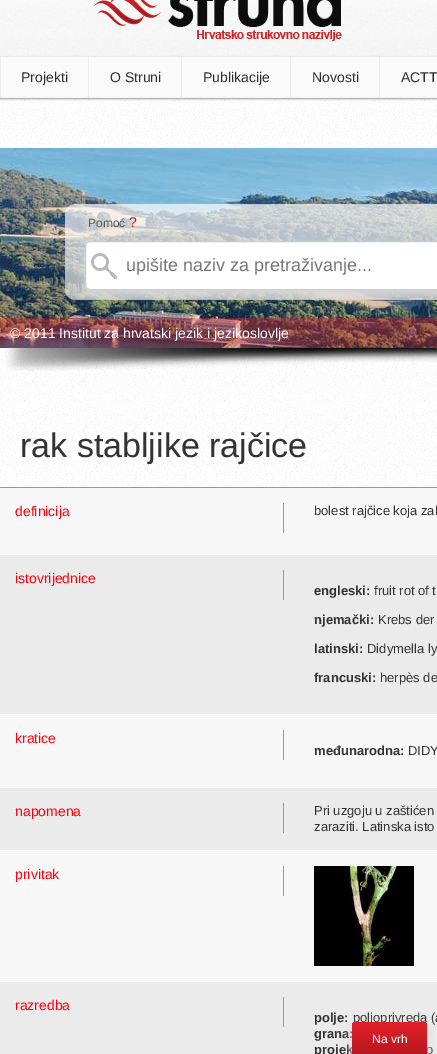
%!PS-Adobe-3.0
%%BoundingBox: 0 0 437 1054
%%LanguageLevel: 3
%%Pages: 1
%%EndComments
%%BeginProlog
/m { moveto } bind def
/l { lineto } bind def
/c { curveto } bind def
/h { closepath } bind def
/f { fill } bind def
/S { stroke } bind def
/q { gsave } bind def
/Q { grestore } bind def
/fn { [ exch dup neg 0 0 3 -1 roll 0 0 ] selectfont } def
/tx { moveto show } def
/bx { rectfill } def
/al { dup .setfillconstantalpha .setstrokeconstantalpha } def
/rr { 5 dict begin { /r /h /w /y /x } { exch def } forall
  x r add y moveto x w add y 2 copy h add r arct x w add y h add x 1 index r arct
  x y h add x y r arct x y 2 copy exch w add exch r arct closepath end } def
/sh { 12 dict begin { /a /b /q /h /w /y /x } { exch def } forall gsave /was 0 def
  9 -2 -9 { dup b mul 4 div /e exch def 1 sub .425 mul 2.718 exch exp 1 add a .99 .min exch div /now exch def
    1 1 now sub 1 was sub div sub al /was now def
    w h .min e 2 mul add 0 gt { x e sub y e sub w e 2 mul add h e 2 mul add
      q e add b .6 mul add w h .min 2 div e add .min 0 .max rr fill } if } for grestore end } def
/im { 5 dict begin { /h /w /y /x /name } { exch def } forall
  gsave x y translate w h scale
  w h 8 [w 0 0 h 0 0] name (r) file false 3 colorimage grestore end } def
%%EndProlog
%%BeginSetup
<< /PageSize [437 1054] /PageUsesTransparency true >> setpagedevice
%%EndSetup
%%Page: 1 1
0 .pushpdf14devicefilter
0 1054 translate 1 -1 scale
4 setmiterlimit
1 setgray
0 0 437 1054 bx
(image0.raw) 0 98 437 389 im
(image1.raw) 0 0 437 57 im
(image2.raw) 94 0 248 41 im
0 setgray
0 58 437 41 0 1 0.4 sh
0.98 setgray
1 57 436 40 bx
(image3.raw) 10 76 401 1 im
0.945 setgray
0 97 437 1 bx
0.929 setgray
88 57 1 41 bx
0 57 1 41 bx
/LiberationSans-Regular 14 fn
0.176 setgray
(Projekti) 21 82 tx
0.929 setgray
181 57 1 41 bx
0.176 setgray
(O Struni) 110 82 tx
0.929 setgray
290 57 1 41 bx
0.176 setgray
(Publikacije) 203 82 tx
0.929 setgray
379 57 1 41 bx
0.176 setgray
(Novosti) 312 82 tx
(ACTT) 401 82 tx
(image4.raw) 0 148 437 200 im
/LiberationSans-Regular 12 fn
0.341 setgray
(Pomoć) 88 227 tx
/LiberationSans-Regular 14 fn
0.741 0.094 0.129 setrgbcolor
(?) 129 227 tx
q
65 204 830 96 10 rr clip newpath
0.851 setgray
85 247 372 49 5 5 1 sh
Q
1 setgray
85 241 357 49 5 rr f
(image5.raw) 91 253 26 26 im
0.8 setgray
85.5 241.5 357 48 4.5 rr S
/LiberationSans-Regular 18 fn
0.459 setgray
(upišite naziv za pretraživanje...) 126 271 tx
/LiberationSans-Regular 14 fn
1 setgray
(© 2011 Institut za hrvatski jezik i jezikoslovlje) 10 338 tx
(image6.raw) 5 348 432 23 im
/LiberationSans-Regular 34 fn
0.2 setgray
(rak stabljike rajčice) 20 457 tx
0.6 setgray
0 487 437 1 bx
0.969 setgray
0 488 437 66 bx
/LiberationSans-Regular 14 fn
0.996 0 0.055 setrgbcolor
(definicija) 15 516 tx
0.6 setgray
283 503 1 30 bx
/LiberationSans-Regular 13 fn
0.2 setgray
(bolest rajčice koja zah) 314 515 tx
0.922 setgray
0 555 437 159 bx
/LiberationSans-Regular 14 fn
0.996 0 0.055 setrgbcolor
(istovrijednice) 15 583 tx
0.6 setgray
283 570 1 30 bx
/LiberationSans-Bold 13 fn
0.2 setgray
(engleski:) 314 595 tx
/LiberationSans-Regular 13 fn
(fruit rot of t) 374 595 tx
/LiberationSans-Bold 13 fn
(njemački:) 314 624 tx
/LiberationSans-Regular 13 fn
(Krebs der) 378 624 tx
/LiberationSans-Bold 13 fn
(latinski:) 314 653 tx
/LiberationSans-Regular 13 fn
(Didymella ly) 367 653 tx
/LiberationSans-Bold 13 fn
(francuski:) 314 682 tx
/LiberationSans-Regular 13 fn
(herpès de) 380 682 tx
0.969 setgray
0 715 437 72 bx
/LiberationSans-Regular 14 fn
0.996 0 0.055 setrgbcolor
(kratice) 15 743 tx
0.6 setgray
283 730 1 30 bx
/LiberationSans-Bold 13 fn
0.2 setgray
(međunarodna:) 314 755 tx
/LiberationSans-Regular 13 fn
(DIDY) 408 755 tx
0.922 setgray
0 788 437 62 bx
/LiberationSans-Regular 14 fn
0.996 0 0.055 setrgbcolor
(napomena) 15 816 tx
0.6 setgray
283 803 1 30 bx
/LiberationSans-Regular 13 fn
0.2 setgray
(Pri uzgoju u zaštićen) 314 815 tx
(zaraziti. Latinska isto) 314 831 tx
0.969 setgray
0 851 437 130 bx
/LiberationSans-Regular 14 fn
0.996 0 0.055 setrgbcolor
(privitak) 15 879 tx
0.6 setgray
283 866 1 30 bx
(image7.raw) 314 866 100 100 im
0.922 setgray
0 982 437 72 bx
0.996 0 0.055 setrgbcolor
(razredba) 15 1010 tx
0.6 setgray
283 997 1 30 bx
/LiberationSans-Bold 13 fn
0.2 setgray
(polje:) 314 1022 tx
/LiberationSans-Regular 13 fn
(poljoprivreda \(a) 353 1022 tx
/LiberationSans-Bold 13 fn
(grana:) 314 1038 tx
(projek) 314 1054 tx
/LiberationSans-Regular 13 fn
(o) 426 1054 tx
0.851 setgray
352 1028 75 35 5 5 1 sh
q 357 1022 m 422 1022 l 425 1022 427 1024 427 1027 c 427 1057 l 352 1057 l 352 1027 l 352 1024 354 1022 357 1022 c h clip newpath
<< /ShadingType 2 /ColorSpace /DeviceRGB /Coords [390 1022 390 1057] /Extend [true true] /Function << /FunctionType 3 /Domain [0 1] /Functions [<< /FunctionType 2 /Domain [0 1] /C0 [0.878 0.125 0.169] /C1 [0.835 0.114 0.153] /N 1 >> << /FunctionType 2 /Domain [0 1] /C0 [0.835 0.114 0.153] /C1 [0.753 0.098 0.129] /N 1 >> << /FunctionType 2 /Domain [0 1] /C0 [0.753 0.098 0.129] /C1 [0.714 0.086 0.125] /N 1 >>] /Bounds [0.33 0.73] /Encode [0 1 0 1 0 1] >> >> shfill Q
/LiberationSans-Regular 12 fn
1 setgray
(Na vrh) 372 1043 tx
.poppdf14devicefilter showpage
%%EOF
